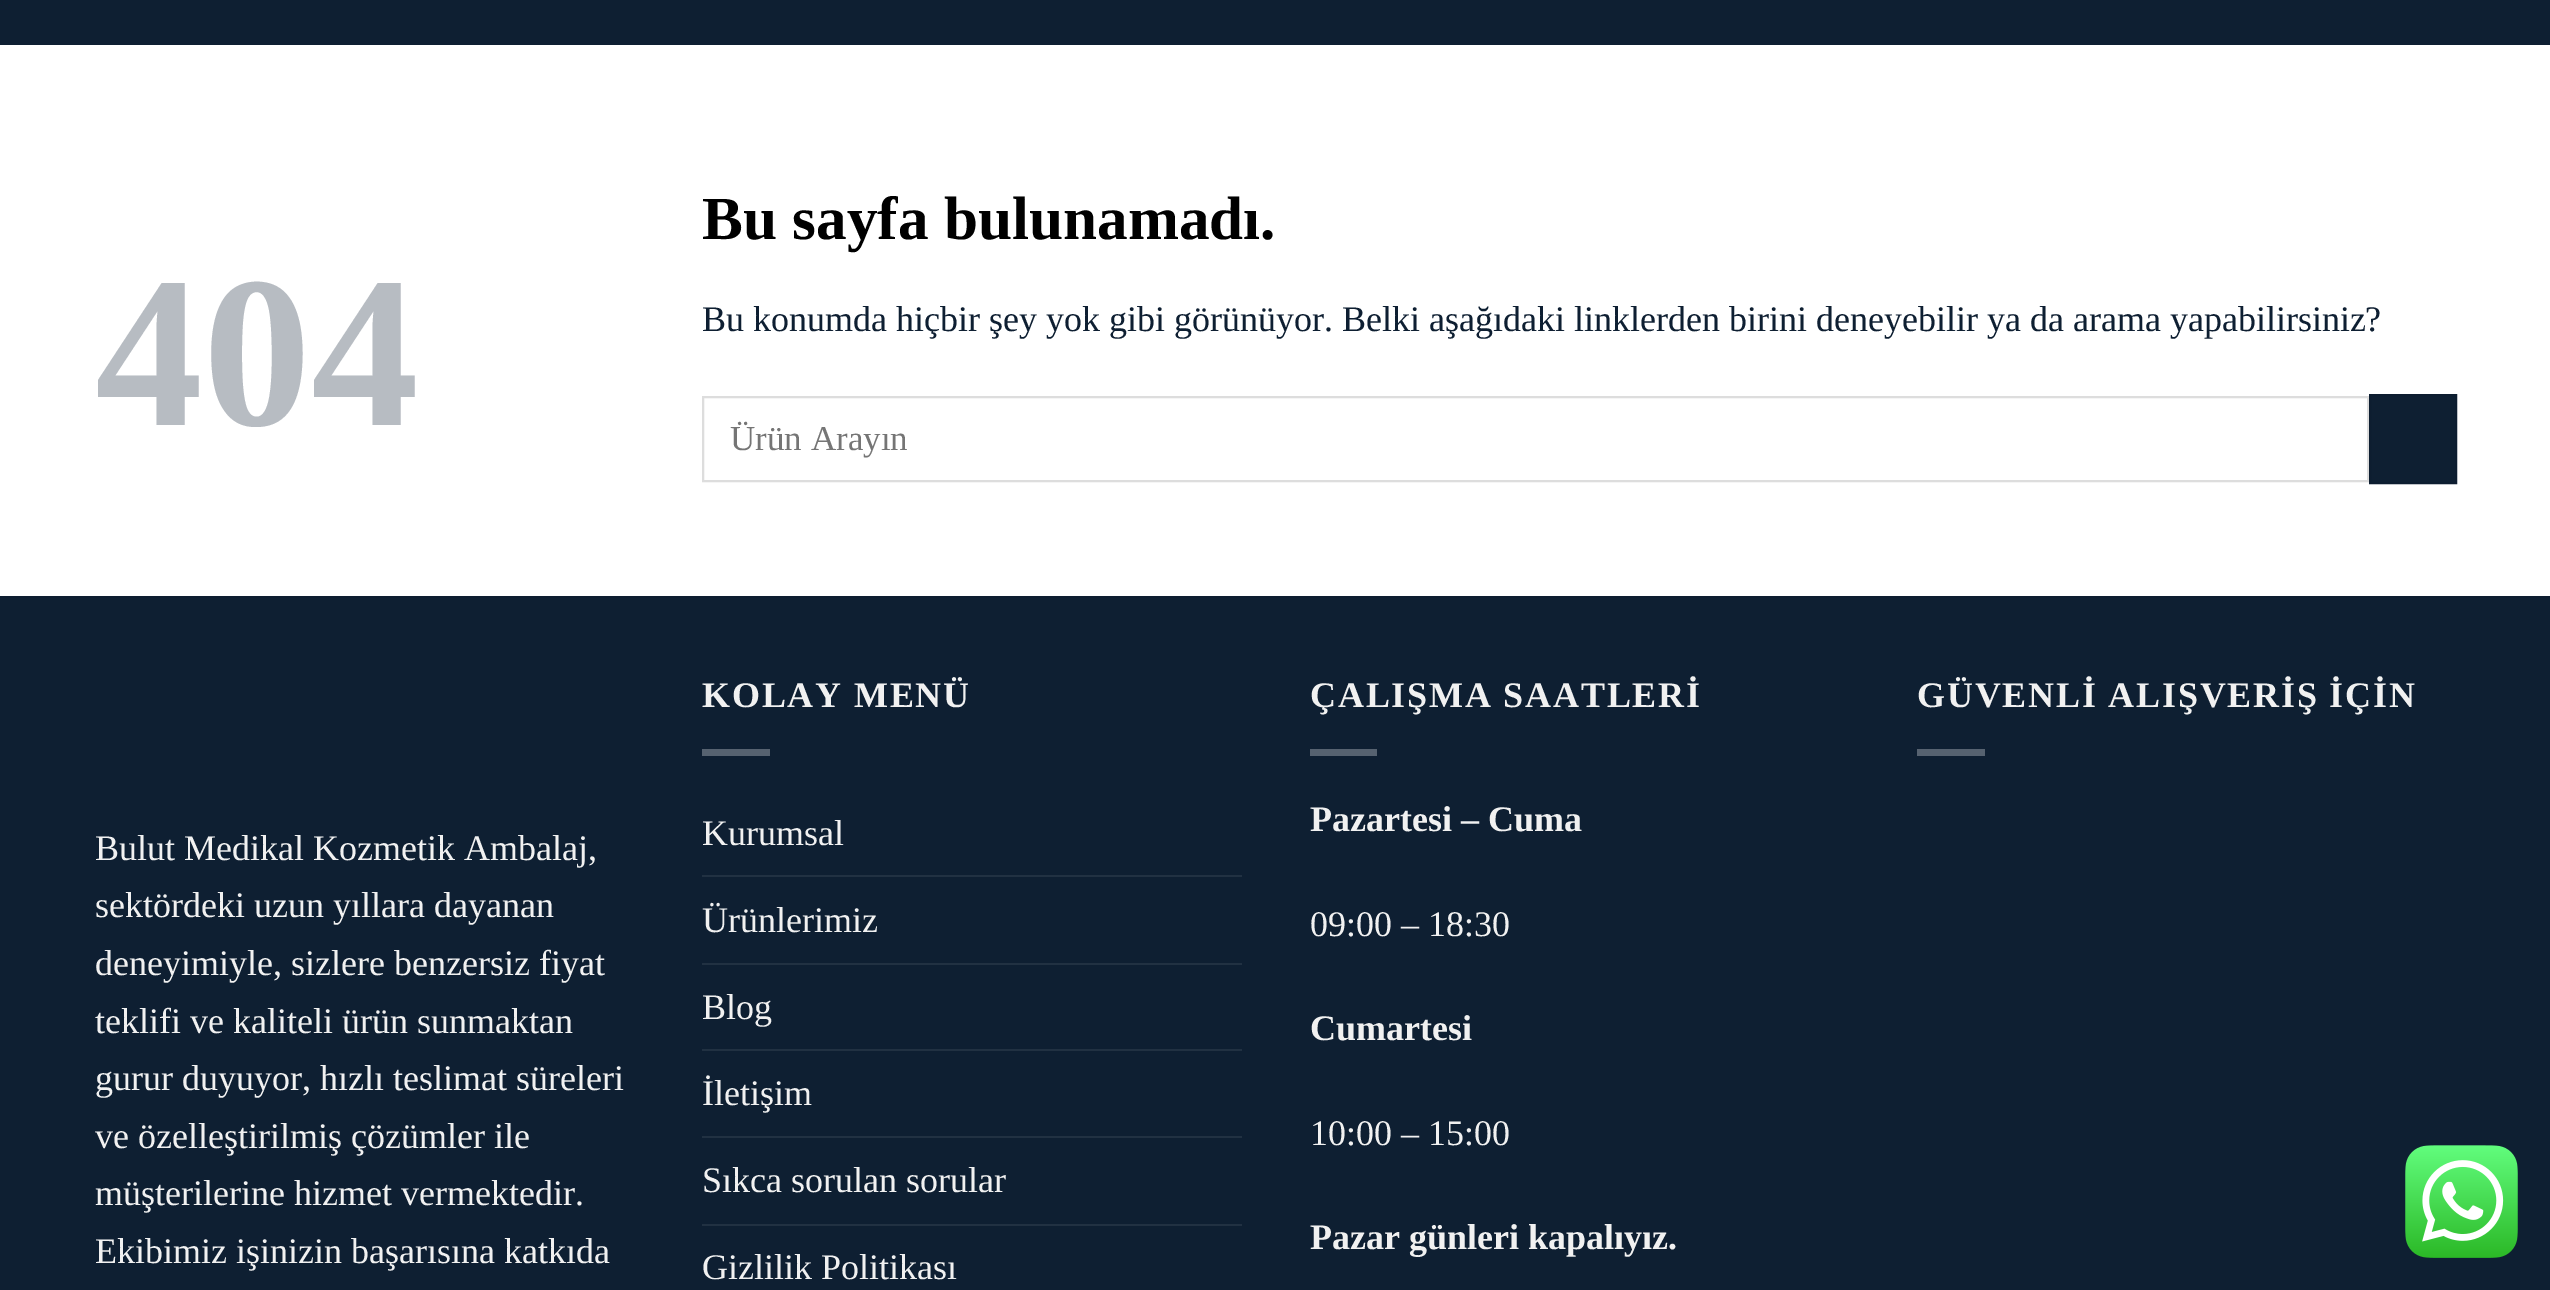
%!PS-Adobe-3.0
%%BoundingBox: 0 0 2550 1290
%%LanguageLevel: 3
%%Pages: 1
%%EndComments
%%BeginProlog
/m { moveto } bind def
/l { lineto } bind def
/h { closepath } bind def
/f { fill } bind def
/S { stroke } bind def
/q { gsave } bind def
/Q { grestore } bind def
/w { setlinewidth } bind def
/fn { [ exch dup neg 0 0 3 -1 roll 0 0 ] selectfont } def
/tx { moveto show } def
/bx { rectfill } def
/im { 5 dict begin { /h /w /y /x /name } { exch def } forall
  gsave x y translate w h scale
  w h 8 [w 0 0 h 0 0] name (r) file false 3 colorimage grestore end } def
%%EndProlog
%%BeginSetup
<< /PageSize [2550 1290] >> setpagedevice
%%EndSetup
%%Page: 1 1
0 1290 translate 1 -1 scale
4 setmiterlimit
1 setgray
0 0 2550 1290 bx
0.055 0.122 0.196 setrgbcolor
0 0 2550 45 bx
/LiberationSerif-Bold 216 fn
0.718 0.737 0.761 setrgbcolor
(404) 95 425 tx
/LiberationSerif-Bold 61.25 fn
0 setgray
(Bu sayfa bulunamadı.) 702 239 tx
/LiberationSerif-Regular 36 fn
0.055 0.122 0.196 setrgbcolor
(Bu konumda hiçbir şey yok gibi görünüyor. Belki aşağıdaki linklerden birini deneyebilir ya da arama yapabilirsiniz?) 702 331 tx
0.867 setgray
2 w
703 397 1665 84 rectstroke
/LiberationSerif-Regular 35 fn
0.459 setgray
(Ürün Arayın) 730 450 tx
0.055 0.122 0.196 setrgbcolor
2370 395 m 2456 395 l 2456 483 l 2370 483 l h q f Q
0.051 0.114 0.188 setrgbcolor
S
0.055 0.122 0.196 setrgbcolor
0 598 2550 692 bx
0.051 0.114 0.188 setrgbcolor
0 596 2550 2 bx
/LiberationSerif-Regular 36 fn
0.945 setgray
(Bulut Medikal Kozmetik Ambalaj,) 95 860 tx
(sektördeki uzun yıllara dayanan) 95 917 tx
(deneyimiyle, sizlere benzersiz fiyat) 95 975 tx
(teklifi ve kaliteli ürün sunmaktan) 95 1033 tx
(gurur duyuyor, hızlı teslimat süreleri) 95 1090 tx
(ve özelleştirilmiş çözümler ile) 95 1148 tx
(müşterilerine hizmet vermektedir.) 95 1205 tx
(Ekibimiz işinizin başarısına katkıda) 95 1263 tx
/LiberationSerif-Bold 36 fn
702 707 m 1.8 0 (KOLAY MENÜ) ashow
0.337 0.384 0.439 setrgbcolor
702 749 68 7 bx
/LiberationSerif-Regular 36 fn
0.945 setgray
(Kurumsal) 702 845 tx
0.129 0.192 0.259 setrgbcolor
702 875 540 2 bx
0.945 setgray
(Ürünlerimiz) 702 932 tx
0.129 0.192 0.259 setrgbcolor
702 963 540 2 bx
0.945 setgray
(Blog) 702 1019 tx
0.129 0.192 0.259 setrgbcolor
702 1049 540 2 bx
0.945 setgray
(İletişim) 702 1105 tx
0.129 0.192 0.259 setrgbcolor
702 1136 540 2 bx
0.945 setgray
(Sıkca sorulan sorular) 702 1192 tx
0.129 0.192 0.259 setrgbcolor
702 1224 540 2 bx
0.945 setgray
(Gizlilik Politikası) 702 1279 tx
/LiberationSerif-Bold 36 fn
1310 707 m 1.8 0 (ÇALIŞMA SAATLERİ) ashow
0.337 0.384 0.439 setrgbcolor
1310 749 67 7 bx
0.945 setgray
(Pazartesi – Cuma) 1310 831 tx
/LiberationSerif-Regular 36 fn
(09:00 – 18:30) 1310 936 tx
/LiberationSerif-Bold 36 fn
(Cumartesi) 1310 1040 tx
/LiberationSerif-Regular 36 fn
(10:00 – 15:00) 1310 1145 tx
/LiberationSerif-Bold 36 fn
(Pazar günleri kapalıyız.) 1310 1249 tx
1917 707 m 1.8 0 (GÜVENLİ ALIŞVERİŞ İÇİN) ashow
0.337 0.384 0.439 setrgbcolor
1917 749 68 7 bx
(image0.raw) 2405 1145 113 113 im
showpage
%%EOF
